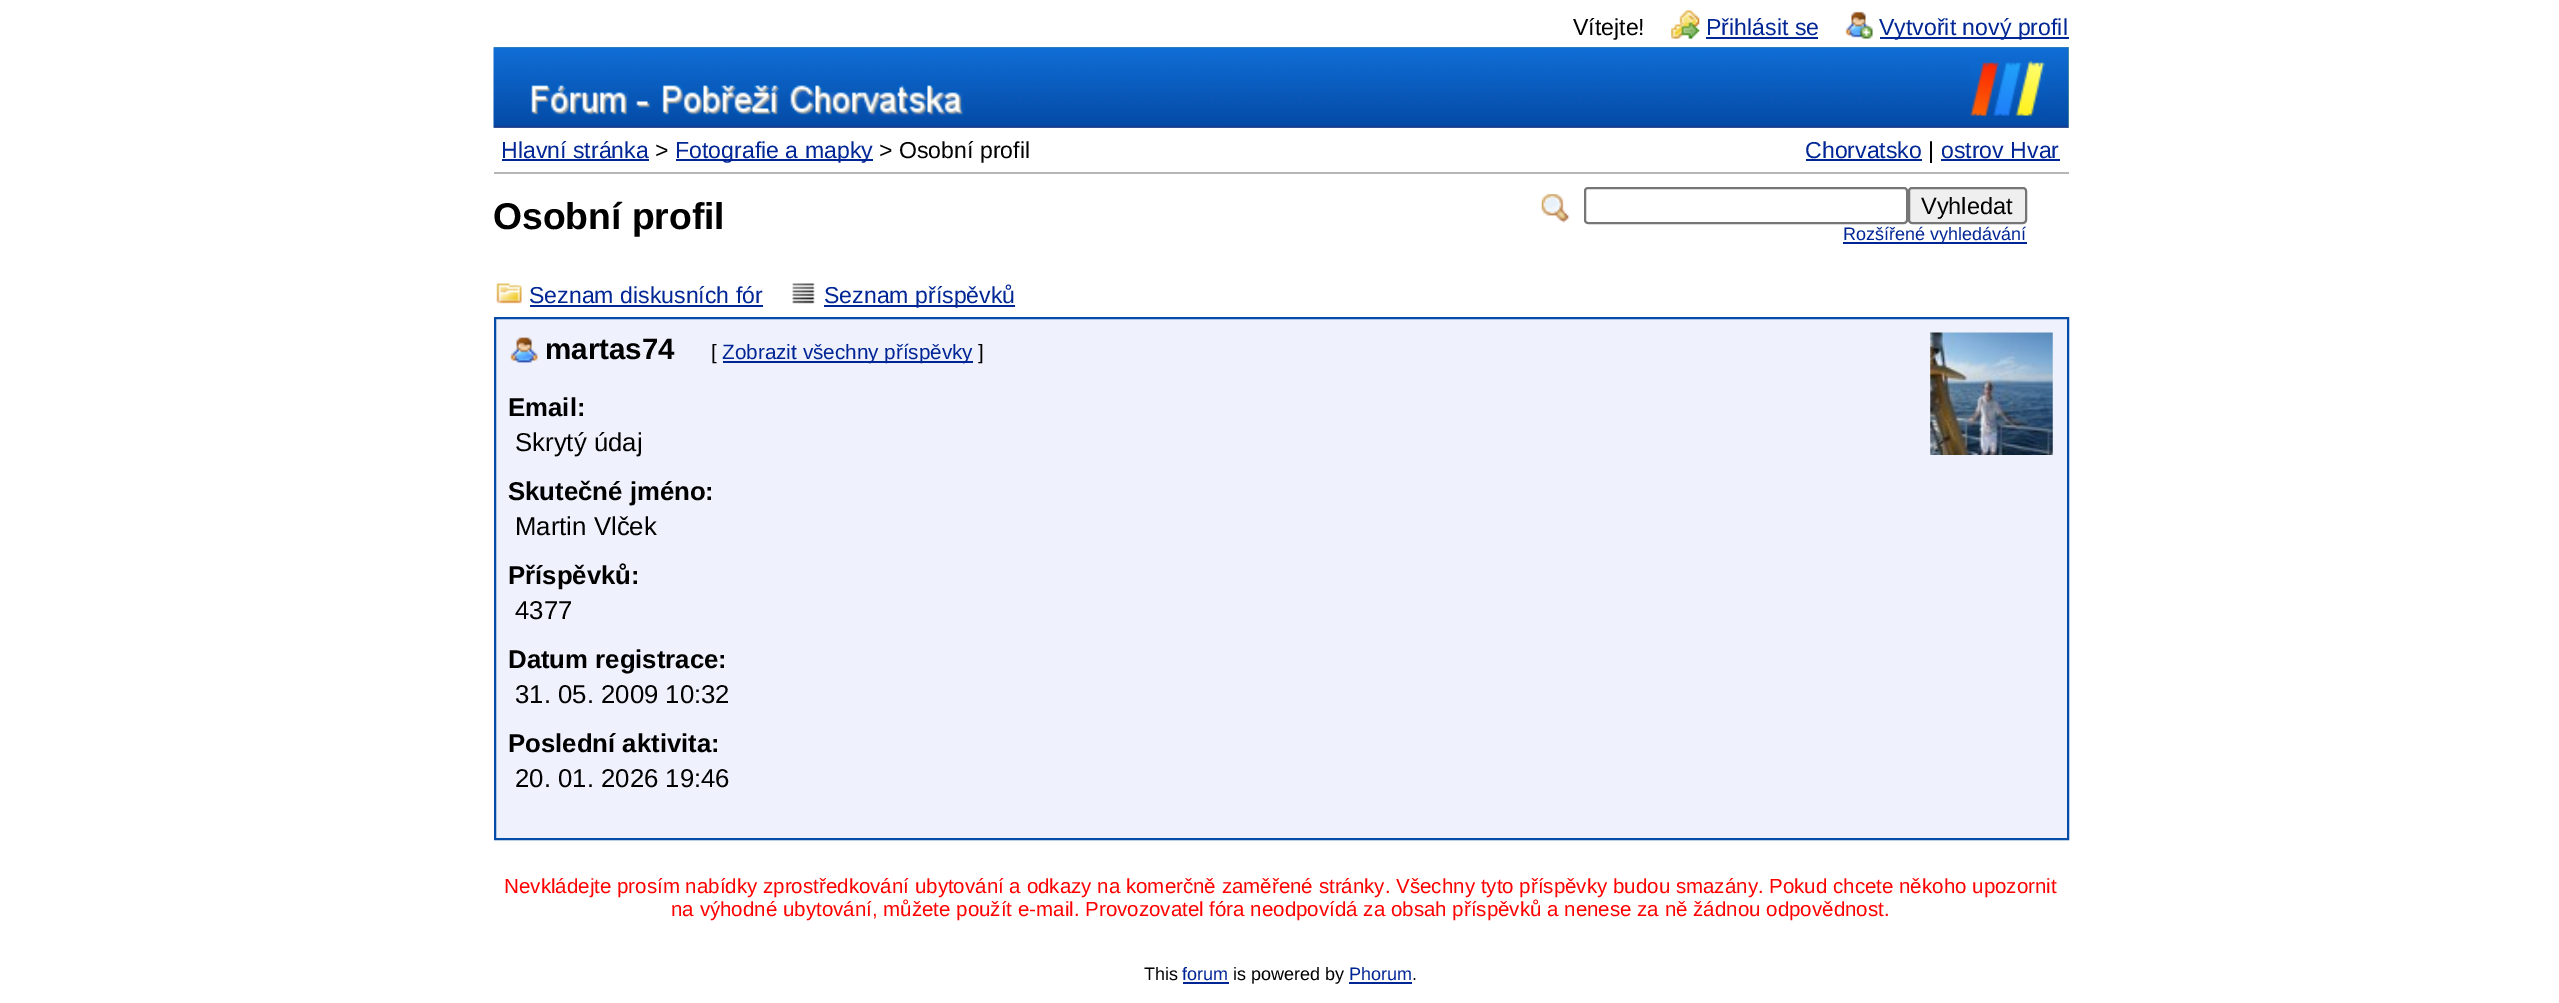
%!PS-Adobe-3.0
%%BoundingBox: 0 0 2559 1003
%%LanguageLevel: 3
%%Pages: 1
%%EndComments
%%BeginProlog
/m { moveto } bind def
/l { lineto } bind def
/h { closepath } bind def
/f { fill } bind def
/S { stroke } bind def
/q { gsave } bind def
/Q { grestore } bind def
/w { setlinewidth } bind def
/fn { [ exch dup neg 0 0 3 -1 roll 0 0 ] selectfont } def
/tx { moveto show } def
/bx { rectfill } def
/rr { 5 dict begin { /r /h /w /y /x } { exch def } forall
  x r add y moveto x w add y 2 copy h add r arct x w add y h add x 1 index r arct
  x y h add x y r arct x y 2 copy exch w add exch r arct closepath end } def
/im { 5 dict begin { /h /w /y /x /name } { exch def } forall
  gsave x y translate w h scale
  w h 8 [w 0 0 h 0 0] name (r) file false 3 colorimage grestore end } def
%%EndProlog
%%BeginSetup
<< /PageSize [2559 1003] >> setpagedevice
%%EndSetup
%%Page: 1 1
0 1003 translate 1 -1 scale
4 setmiterlimit
1 setgray
0 0 2559 1003 bx
/LiberationSans-Regular 23.1 fn
0 setgray
(Vítejte!) 1573 35 tx
(image0.raw) 1671 10 29 29 im
0 0.145 0.584 setrgbcolor
(Přihlásit se) 1706 35 tx
1706 37 112 2 bx
(image1.raw) 1845 11 28 28 im
1880 37 189 2 bx
(Vytvořit nový profil) 1879 35 tx
0.471 0.678 0.471 setrgbcolor
494 47 1575 81 bx
(image2.raw) 493 47 1576 81 im
(image3.raw) 530 84 435 32 im
(image4.raw) 1970 61 75 56 im
0.714 setgray
494 172 1575 2 bx
0 0.145 0.584 setrgbcolor
(Hlavní stránka) 501 158 tx
502 159 147 2 bx
0 setgray
(>) 655 158 tx
0 0.145 0.584 setrgbcolor
676 159 197 2 bx
(Fotografie a mapky) 675 158 tx
0 setgray
(> Osobní profil) 879 158 tx
0 0.145 0.584 setrgbcolor
(Chorvatsko) 1805 158 tx
1806 159 116 2 bx
0 setgray
(|) 1928 158 tx
0 0.145 0.584 setrgbcolor
(ostrov Hvar) 1941 158 tx
1941 159 119 2 bx
/LiberationSans-Bold 37.25 fn
0 setgray
(Osobní profil) 493 229 tx
(image5.raw) 1541 194 29 29 im
0.463 setgray
2 w
1585 188 322 35 3 rr S
0.937 setgray
1909 188 117 35 3 rr q f Q
0.463 setgray
S
/LiberationSans-Regular 23.5 fn
0 setgray
(Vyhledat) 1921 214 tx
0 0.145 0.584 setrgbcolor
1843 242 184 2 bx
/LiberationSans-Regular 18 fn
(Rozšířené vyhledávání) 1843 240 tx
(image6.raw) 496 283 26 21 im
/LiberationSans-Regular 23.1 fn
(Seznam diskusních fór) 529 303 tx
530 305 233 2 bx
(image7.raw) 792 283 23 21 im
824 305 191 2 bx
(Seznam příspěvků) 824 303 tx
0.937 0.945 0.988 setrgbcolor
495 318 m 2068 318 l 2068 839 l 495 839 l h q f Q
0.016 0.298 0.659 setrgbcolor
S
(image8.raw) 510 337 28 26 im
/LiberationSans-Bold 29.5 fn
0 setgray
(martas74) 545 359 tx
/LiberationSans-Regular 20.7 fn
([) 711 359 tx
0 0.145 0.584 setrgbcolor
723 361 250 2 bx
(Zobrazit všechny příspěvky) 722 359 tx
0 setgray
(]) 978 359 tx
(image9.raw) 1930 332 123 123 im
/LiberationSans-Bold 25.75 fn
(Email:) 508 416 tx
/LiberationSans-Regular 25.75 fn
(Skrytý údaj) 515 451 tx
/LiberationSans-Bold 25.75 fn
(Skutečné jméno:) 508 500 tx
/LiberationSans-Regular 25.75 fn
(Martin Vlček) 515 535 tx
/LiberationSans-Bold 25.75 fn
(Příspěvků:) 508 584 tx
/LiberationSans-Regular 25.75 fn
(4377) 515 619 tx
/LiberationSans-Bold 25.75 fn
(Datum registrace:) 508 668 tx
/LiberationSans-Regular 25.75 fn
(31. 05. 2009 10:32) 515 703 tx
/LiberationSans-Bold 25.75 fn
(Poslední aktivita:) 508 752 tx
/LiberationSans-Regular 25.75 fn
(20. 01. 2026 19:46) 515 787 tx
/LiberationSans-Regular 20.53 fn
1 0 0 setrgbcolor
(Nevkládejte prosím nabídky zprostředkování ubytování a odkazy na komerčně zaměřené stránky. Všechny tyto příspěvky budou smazány.) 504 893 tx
(Pokud chcete někoho upozornit) 1769 893 tx
(na výhodné ubytování, můžete použít e-mail.) 671 916 tx
(Provozovatel fóra neodpovídá za obsah příspěvků a nenese za ně žádnou odpovědnost.) 1085 916 tx
/LiberationSans-Regular 18 fn
0 setgray
(This) 1144 980 tx
0 0.145 0.584 setrgbcolor
(forum) 1182 980 tx
1183 982 46 2 bx
0 setgray
(is powered by) 1233 980 tx
0 0.145 0.584 setrgbcolor
(Phorum) 1349 980 tx
1349 982 63 2 bx
0 setgray
(.) 1412 980 tx
showpage
%%EOF
